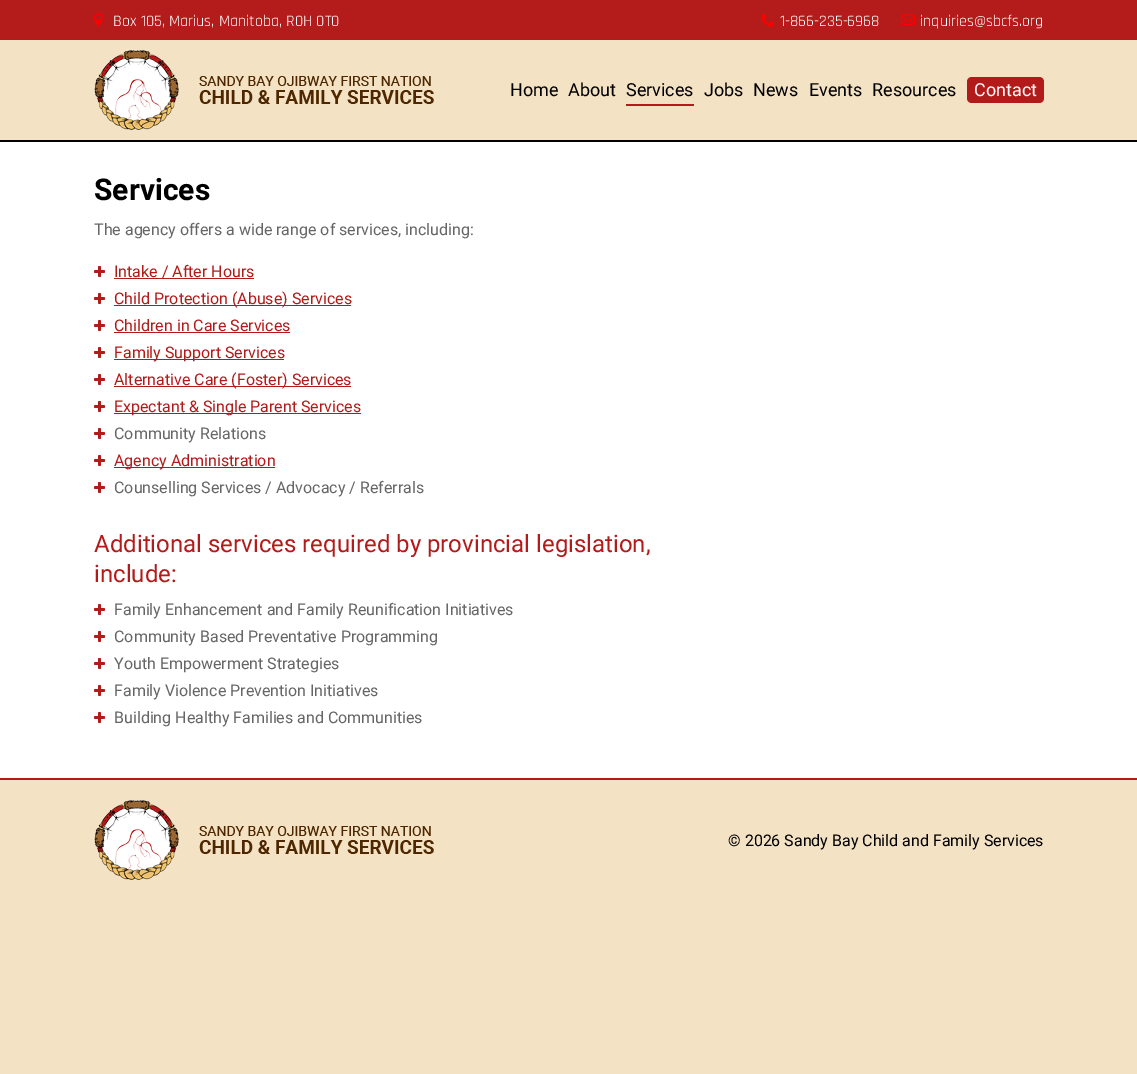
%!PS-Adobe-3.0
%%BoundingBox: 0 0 1137 1074
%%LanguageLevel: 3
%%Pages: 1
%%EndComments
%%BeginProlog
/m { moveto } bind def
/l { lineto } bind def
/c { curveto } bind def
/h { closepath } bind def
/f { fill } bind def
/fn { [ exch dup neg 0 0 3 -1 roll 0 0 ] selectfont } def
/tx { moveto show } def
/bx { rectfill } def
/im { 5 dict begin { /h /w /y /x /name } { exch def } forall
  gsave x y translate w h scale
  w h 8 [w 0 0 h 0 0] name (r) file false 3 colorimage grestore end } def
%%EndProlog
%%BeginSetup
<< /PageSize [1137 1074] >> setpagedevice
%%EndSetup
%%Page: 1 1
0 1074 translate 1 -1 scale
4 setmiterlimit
0.953 0.886 0.769 setrgbcolor
0 0 1137 1074 bx
(image0.raw) 0 0 1137 140 im
/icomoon-Regular 14 fn
1 0 0 setrgbcolor
(B) 94 26 tx
/Rajdhani-Regular 16 fn
1 setgray
(Box 105, Marius, Manitoba, R0H 0T0) 113 26 tx
/icomoon-Regular 14 fn
1 0 0 setrgbcolor
(x) 761 26 tx
/Rajdhani-Regular 16 fn
1 setgray
(1-866-235-6968) 780 26 tx
/icomoon-Regular 14 fn
1 0 0 setrgbcolor
(A) 901 26 tx
/Rajdhani-Regular 16 fn
1 setgray
(inquiries@sbcfs.org) 920 26 tx
(image1.raw) 94 50 340 80 im
/Roboto-Regular 18 fn
0 setgray
(Home) 510 96 tx
(About) 568 96 tx
0.702 0.106 0.106 setrgbcolor
626 104 68 2 bx
0 setgray
(Services) 626 96 tx
(Jobs) 704 96 tx
(News) 753 96 tx
(Events) 809 96 tx
(Resources) 872 96 tx
0.702 0.106 0.106 setrgbcolor
972 77 m 974 77 l 974 103 l 972 103 l 969 103 967 101 967 98 c 967 82 l 967 79 969 77 972 77 c h f
974 77 63 26 bx
1 setgray
(Contact) 974 96 tx
0.702 0.106 0.106 setrgbcolor
1037 77 m 1039 77 l 1042 77 1044 79 1044 82 c 1044 98 l 1044 101 1042 103 1039 103 c 1037 103 l h f
1 setgray
0 142 1137 636 bx
0 setgray
0 140 1137 2 bx
/Roboto-Bold 30 fn
(Services) 94 200 tx
/Roboto-Regular 16 fn
0.4 setgray
(The agency offers a wide range of services, including:) 94 235 tx
(image2.raw) 94 266 11 11 im
0.702 0.106 0.106 setrgbcolor
(Intake / After Hours) 114 277 tx
114 278 140 1 bx
(image2.raw) 94 293 11 11 im
114 305 237 1 bx
(Child Protection \(Abuse\) Services) 114 304 tx
(image2.raw) 94 320 11 11 im
(Children in Care Services) 114 331 tx
114 332 176 1 bx
(image2.raw) 94 347 11 11 im
114 359 170 1 bx
(Family Support Services) 114 358 tx
(image2.raw) 94 374 11 11 im
114 386 237 1 bx
(Alternative Care \(Foster\) Services) 114 385 tx
(image2.raw) 94 401 11 11 im
114 413 247 1 bx
(Expectant & Single Parent Services) 114 412 tx
(image2.raw) 94 428 11 11 im
0.4 setgray
(Community Relations) 114 439 tx
(image2.raw) 94 455 11 11 im
0.702 0.106 0.106 setrgbcolor
114 467 161 1 bx
(Agency Administration) 114 466 tx
(image2.raw) 94 482 11 11 im
0.4 setgray
(Counselling Services / Advocacy / Referrals) 114 493 tx
/Roboto-Regular 24 fn
0.702 0.106 0.106 setrgbcolor
(Additional services required by provincial legislation,) 94 552 tx
(include:) 94 582 tx
(image2.raw) 94 604 11 11 im
/Roboto-Regular 16 fn
0.4 setgray
(Family Enhancement and Family Reunification Initiatives) 114 615 tx
(image2.raw) 94 631 11 11 im
(Community Based Preventative Programming) 114 642 tx
(image2.raw) 94 658 11 11 im
(Youth Empowerment Strategies) 114 669 tx
(image2.raw) 94 685 11 11 im
(Family Violence Prevention Initiatives) 114 696 tx
(image2.raw) 94 712 11 11 im
(Building Healthy Families and Communities) 114 723 tx
0.702 0.106 0.106 setrgbcolor
0 778 1137 2 bx
(image1.raw) 94 800 340 80 im
0 setgray
(© 2026 Sandy Bay Child and Family Services) 728 846 tx
showpage
%%EOF
